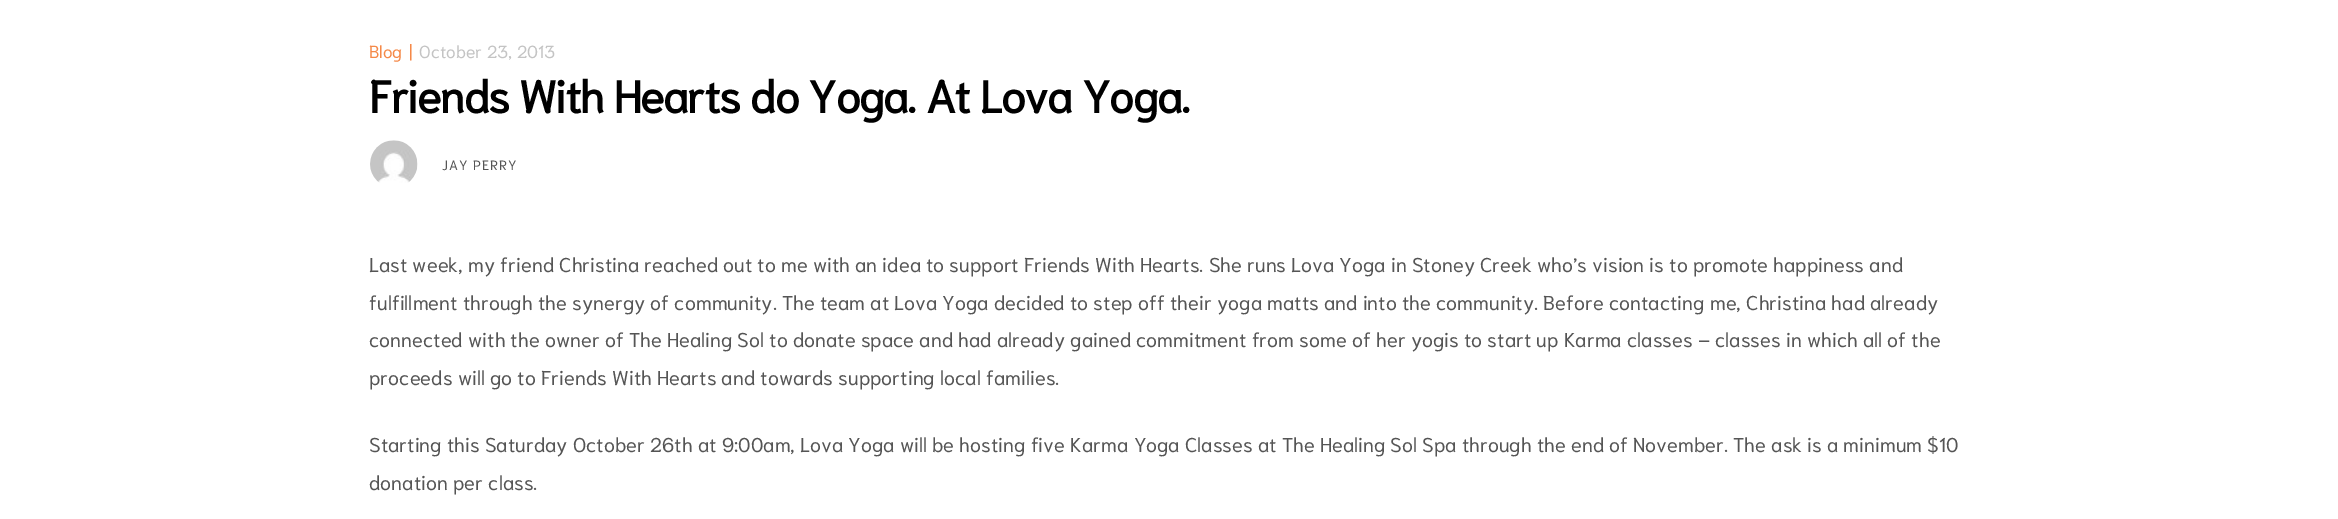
%!PS-Adobe-3.0
%%BoundingBox: 0 0 2338 519
%%LanguageLevel: 3
%%Pages: 1
%%EndComments
%%BeginProlog
/m { moveto } bind def
/fn { [ exch dup neg 0 0 3 -1 roll 0 0 ] selectfont } def
/tx { moveto show } def
/bx { rectfill } def
/im { 5 dict begin { /h /w /y /x /name } { exch def } forall
  gsave x y translate w h scale
  w h 8 [w 0 0 h 0 0] name (r) file false 3 colorimage grestore end } def
%%EndProlog
%%BeginSetup
<< /PageSize [2338 519] >> setpagedevice
%%EndSetup
%%Page: 1 1
0 519 translate 1 -1 scale
4 setmiterlimit
1 setgray
0 0 2338 519 bx
/Niramit-Regular 17.5 fn
0.961 0.537 0.282 setrgbcolor
(Blog) 369 58 tx
(|) 409 58 tx
0.769 setgray
(October 23, 2013) 419 58 tx
/Niramit-Bold 45 fn
0 setgray
369 113 m -1.25 0 (Friends With Hearts do Yoga. At Lova Yoga.) ashow
(image0.raw) 370 140 48 43 im
/Niramit-Regular 13.5 fn
0.333 setgray
442 170 m 1.1 0 (JAY PERRY) ashow
/Niramit-Regular 20 fn
(Last week, my friend Christina reached out to me with an idea to support Friends With Hearts. She runs Lova Yoga in Stoney Creek who’s vision is to promote happiness and) 369 272 tx
(fulfillment through the synergy of community. The team at Lova Yoga decided to step off their yoga matts and into the community. Before contacting me, Christina had already) 369 310 tx
(connected with the owner of The Healing Sol to donate space and had already gained commitment from some of her yogis to start up Karma classes – classes in which all of the) 369 347 tx
(proceeds will go to Friends With Hearts and towards supporting local families.) 369 385 tx
(Starting this Saturday October 26th at 9:00am, Lova Yoga will be hosting five Karma Yoga Classes at The Healing Sol Spa through the end of November. The ask is a minimum $10) 369 452 tx
(donation per class.) 369 490 tx
showpage
%%EOF
